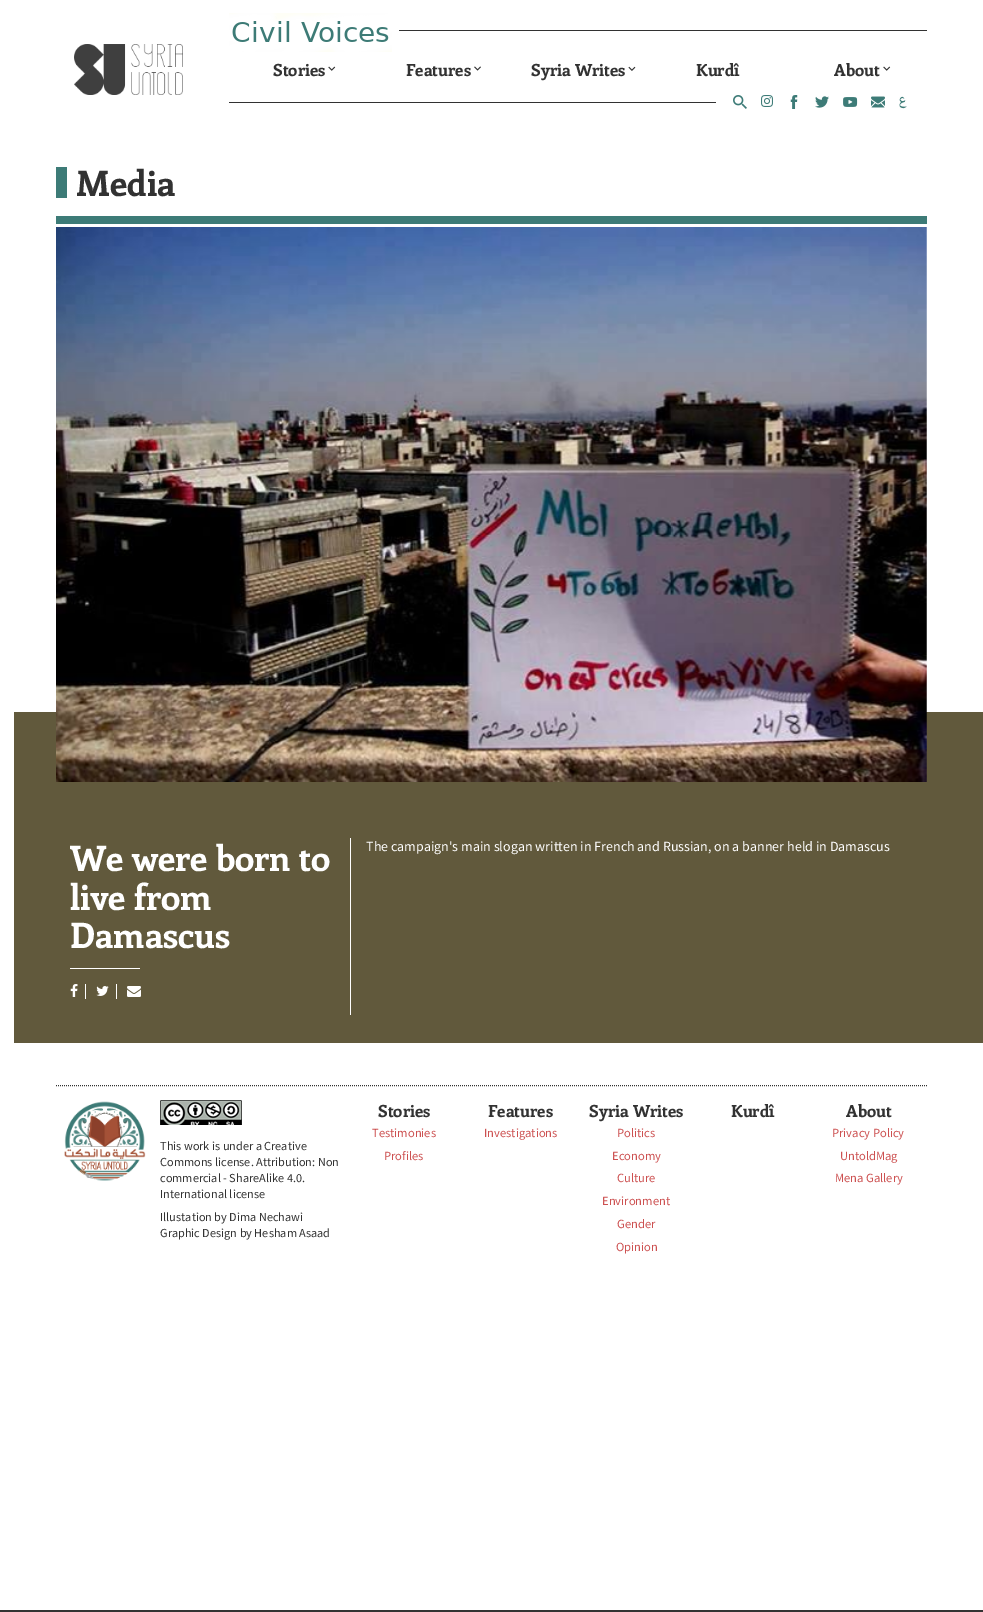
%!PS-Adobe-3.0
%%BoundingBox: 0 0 983 1612
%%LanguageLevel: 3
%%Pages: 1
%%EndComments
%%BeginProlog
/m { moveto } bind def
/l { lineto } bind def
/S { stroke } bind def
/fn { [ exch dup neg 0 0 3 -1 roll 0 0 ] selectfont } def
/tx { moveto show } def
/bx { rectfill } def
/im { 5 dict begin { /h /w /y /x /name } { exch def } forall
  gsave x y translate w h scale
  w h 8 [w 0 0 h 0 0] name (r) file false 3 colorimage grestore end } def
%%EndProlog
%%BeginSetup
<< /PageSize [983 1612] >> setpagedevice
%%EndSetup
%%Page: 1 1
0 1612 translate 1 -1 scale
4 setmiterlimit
1 setgray
0 0 983 1612 bx
(image0.raw) 74 44 109 51 im
(image1.raw) 229 13 163 39 im
0.196 setgray
399 30 528 1 bx
/Enriqueta-Bold 16.75 fn
(Stories) 273 76 tx
(image2.raw) 328 66 8 5 im
(Features) 406 76 tx
(image3.raw) 474 66 7 5 im
(Syria Writes) 531 76 tx
(image4.raw) 628 66 8 5 im
(Kurdî) 696 76 tx
(About) 834 76 tx
(image5.raw) 883 66 8 5 im
229 102 487 1 bx
(image6.raw) 733 95 14 14 im
(image7.raw) 761 95 12 12 im
(image8.raw) 790 95 8 14 im
(image9.raw) 815 96 14 12 im
(image10.raw) 843 97 15 10 im
(image11.raw) 871 96 14 12 im
(image12.raw) 899 96 8 13 im
0.239 0.482 0.467 setrgbcolor
56 216 871 8 bx
56 167 11 31 bx
/Enriqueta-Bold 35 fn
0.196 setgray
(Media) 76 196 tx
0.38 0.349 0.235 setrgbcolor
14 712 969 331 bx
(image13.raw) 56 227 871 555 im
0.996 setgray
350 838 1 177 bx
1 setgray
(We were born to) 70 871 tx
(live from) 70 910 tx
(Damascus) 70 948 tx
70 968 70 1 bx
85 984 1 15 bx
(image14.raw) 70 984 8 13 im
116 984 1 15 bx
(image15.raw) 96 986 13 10 im
(image16.raw) 127 986 14 11 im
/Mada-Regular 14 fn
(The campaign's main slogan written in French and Russian, on a banner held in Damascus) 366 851 tx
0.196 setgray
[1 1] 0 setdash
56 1085.5 m 927 1085.5 l S
(image17.raw) 64 1101 82 80 im
(image18.raw) 160 1100 82 25 im
/Mada-Regular 12.25 fn
(This work is under a Creative) 160 1150 tx
(Commons license. Attribution: Non) 160 1166 tx
(commercial - ShareAlike 4.0.) 160 1182 tx
(International license) 160 1198 tx
(Illustation by Dima Nechawi) 160 1221 tx
(Graphic Design by Hesham Asaad) 160 1237 tx
/Enriqueta-Bold 16.75 fn
(Stories) 378 1117 tx
/Mada-Regular 12.5 fn
0.804 0.318 0.318 setrgbcolor
(Testimonies) 372 1137 tx
(Profiles) 384 1160 tx
/Enriqueta-Bold 16.75 fn
0.196 setgray
(Features) 488 1117 tx
/Mada-Regular 12.5 fn
0.804 0.318 0.318 setrgbcolor
(Investigations) 484 1137 tx
/Enriqueta-Bold 16.75 fn
0.196 setgray
(Syria Writes) 589 1117 tx
/Mada-Regular 12.5 fn
0.804 0.318 0.318 setrgbcolor
(Politics) 617 1137 tx
(Economy) 612 1160 tx
(Culture) 617 1182 tx
(Environment) 602 1205 tx
(Gender) 617 1228 tx
(Opinion) 616 1251 tx
/Enriqueta-Bold 16.75 fn
0.196 setgray
(Kurdî) 731 1117 tx
(About) 846 1117 tx
/Mada-Regular 12.5 fn
0.804 0.318 0.318 setrgbcolor
(Privacy Policy) 832 1137 tx
(UntoldMag) 840 1160 tx
(Mena Gallery) 835 1182 tx
0.2 setgray
0 1610 983 2 bx
showpage
%%EOF
